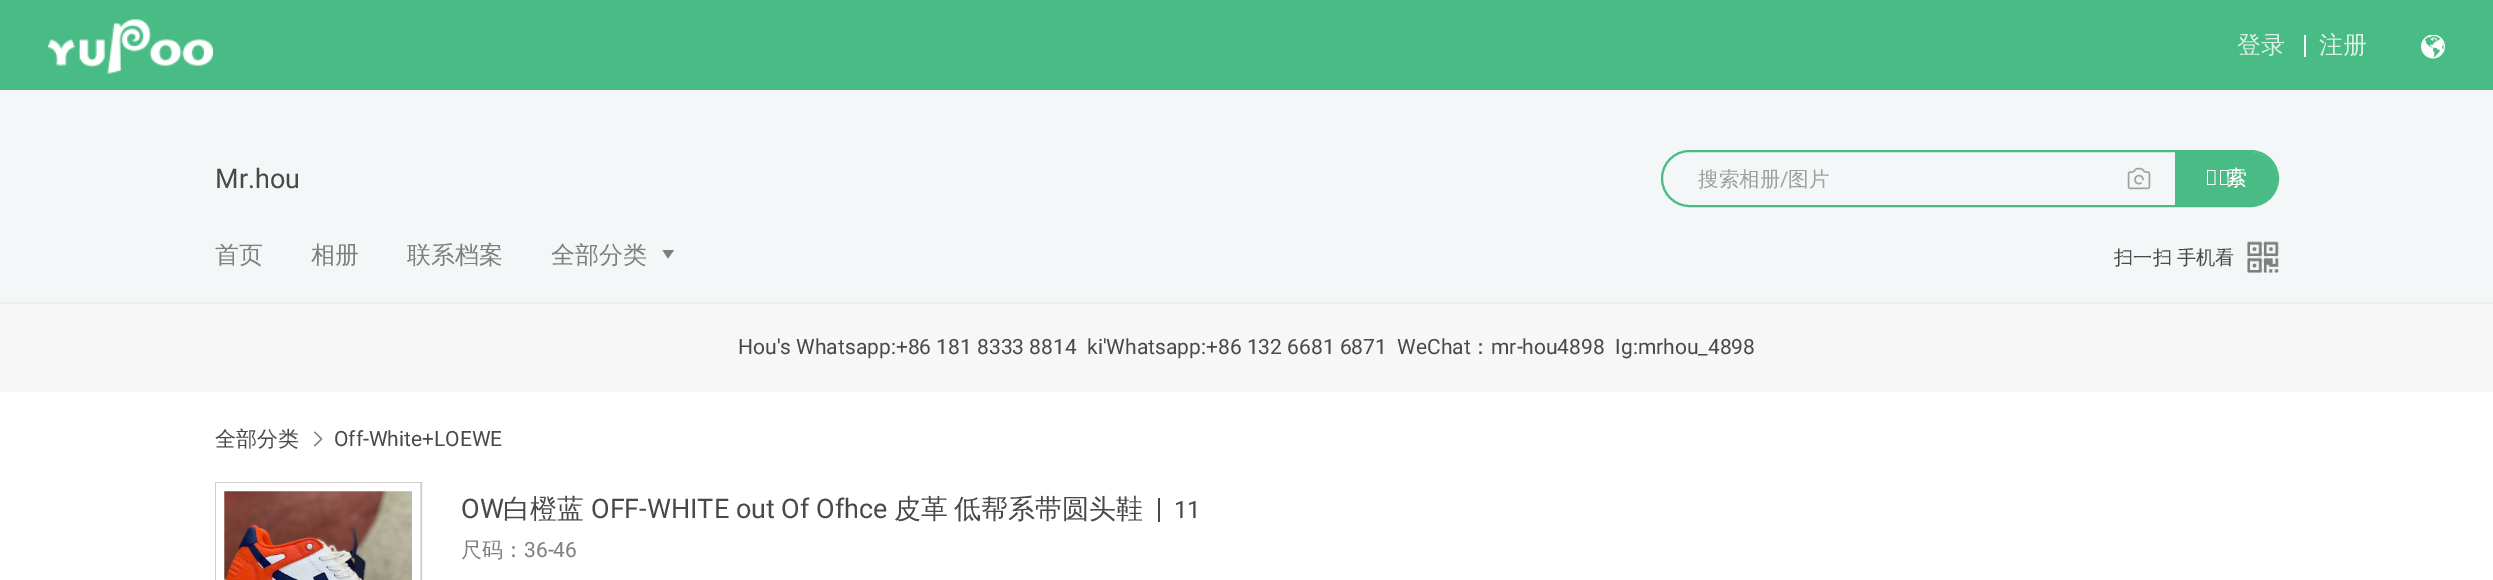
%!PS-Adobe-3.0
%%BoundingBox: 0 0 2493 580
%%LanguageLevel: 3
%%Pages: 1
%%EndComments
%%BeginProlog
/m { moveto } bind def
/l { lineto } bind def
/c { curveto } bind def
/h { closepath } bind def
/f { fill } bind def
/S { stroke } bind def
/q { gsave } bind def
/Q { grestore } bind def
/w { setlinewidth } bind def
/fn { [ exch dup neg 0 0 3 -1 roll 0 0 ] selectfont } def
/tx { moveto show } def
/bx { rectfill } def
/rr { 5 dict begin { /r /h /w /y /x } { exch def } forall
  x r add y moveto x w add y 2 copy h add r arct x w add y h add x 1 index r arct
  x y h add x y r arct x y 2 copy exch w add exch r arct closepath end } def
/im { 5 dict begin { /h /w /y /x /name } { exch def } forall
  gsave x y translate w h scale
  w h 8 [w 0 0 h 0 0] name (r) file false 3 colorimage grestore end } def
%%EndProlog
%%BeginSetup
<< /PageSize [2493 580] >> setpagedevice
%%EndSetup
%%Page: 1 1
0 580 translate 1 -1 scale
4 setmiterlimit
1 setgray
0 0 2493 580 bx
0.286 0.737 0.522 setrgbcolor
0 0 2493 90 bx
(image0.raw) 48 19 165 55 im
/WenQuanYiZenHei-Medium 24 fn
0.859 0.949 0.906 setrgbcolor
(登录) 2237 53 tx
1 setgray
2304 35 2 22 bx
0.859 0.949 0.906 setrgbcolor
(注册) 2319 53 tx
(image1.raw) 2421 35 24 24 im
0.953 0.969 0.969 setrgbcolor
0 90 2493 212 bx
/Roboto-Regular 27 fn
0.286 setgray
(Mr.hou) 215 188 tx
0.286 0.737 0.522 setrgbcolor
2 w
1662 151 616 55 27.5 rr S
/WenQuanYiZenHei-Medium 20.5 fn
0.624 setgray
(搜索相册) 1698 186 tx
/Roboto-Regular 20.5 fn
(/) 1780 186 tx
/WenQuanYiZenHei-Medium 20.5 fn
(图片) 1788 186 tx
(image2.raw) 2127 167 24 23 im
0.286 0.737 0.522 setrgbcolor
2176 153 m 2250 153 l 2264.5 153 2276 164.5 2276 179 c 2276 193.5 2264.5 205 2250 205 c 2176 205 l h q f Q
S
/NotoSans-Regular 21 fn
1 setgray
(搜) 2205 185 tx
/WenQuanYiZenHei-Medium 21 fn
(索) 2226 185 tx
/WenQuanYiZenHei-Medium 24 fn
0.498 setgray
(首页) 215 263 tx
(相册) 311 263 tx
(联系档案) 407 263 tx
(全部分类) 551 263 tx
668 258.5 m 662.5 250 l 674 250 l h f
/WenQuanYiZenHei-Medium 19.25 fn
0.286 setgray
2114 264 m -1 0 32 (扫一扫 手机看) widthshow
(image3.raw) 2247 241 32 32 im
0.969 setgray
0 304 2493 88 bx
0.925 setgray
0 302 2493 2 bx
/Roboto-Regular 21 fn
0.286 setgray
(Hou's Whatsapp:+86 181 8333 8814  ki'Whatsapp:+86 132 6681 6871  WeChat) 738 354 tx
/WenQuanYiZenHei-Medium 21 fn
(：) 1470 354 tx
/Roboto-Regular 21 fn
(mr-hou4898  Ig:mrhou_4898) 1491 354 tx
/WenQuanYiZenHei-Medium 21 fn
(全部分类) 215 446 tx
(image4.raw) 314 431 9 16 im
/Roboto-Regular 21 fn
(Off-White+LOEWE) 334 446 tx
0.812 setgray
216 483 205 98 rectstroke
(image5.raw) 224 491 188 89 im
1 setgray
8 w
220 487 196 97 rectstroke
/Roboto-Regular 27 fn
0.286 setgray
(OW) 461 518 tx
/WenQuanYiZenHei-Medium 27 fn
(白橙蓝) 503 518 tx
/Roboto-Regular 27 fn
(OFF-WHITE out Of Ofhce) 591 518 tx
/WenQuanYiZenHei-Medium 27 fn
(皮革) 894 518 tx
(低帮系带圆头鞋) 954 518 tx
1158 498 2 24 bx
/Roboto-Regular 24 fn
(11) 1174 518 tx
/WenQuanYiZenHei-Medium 21 fn
0.498 setgray
(尺码：) 461 557 tx
/Roboto-Regular 21 fn
(36-46) 524 557 tx
showpage
%%EOF
